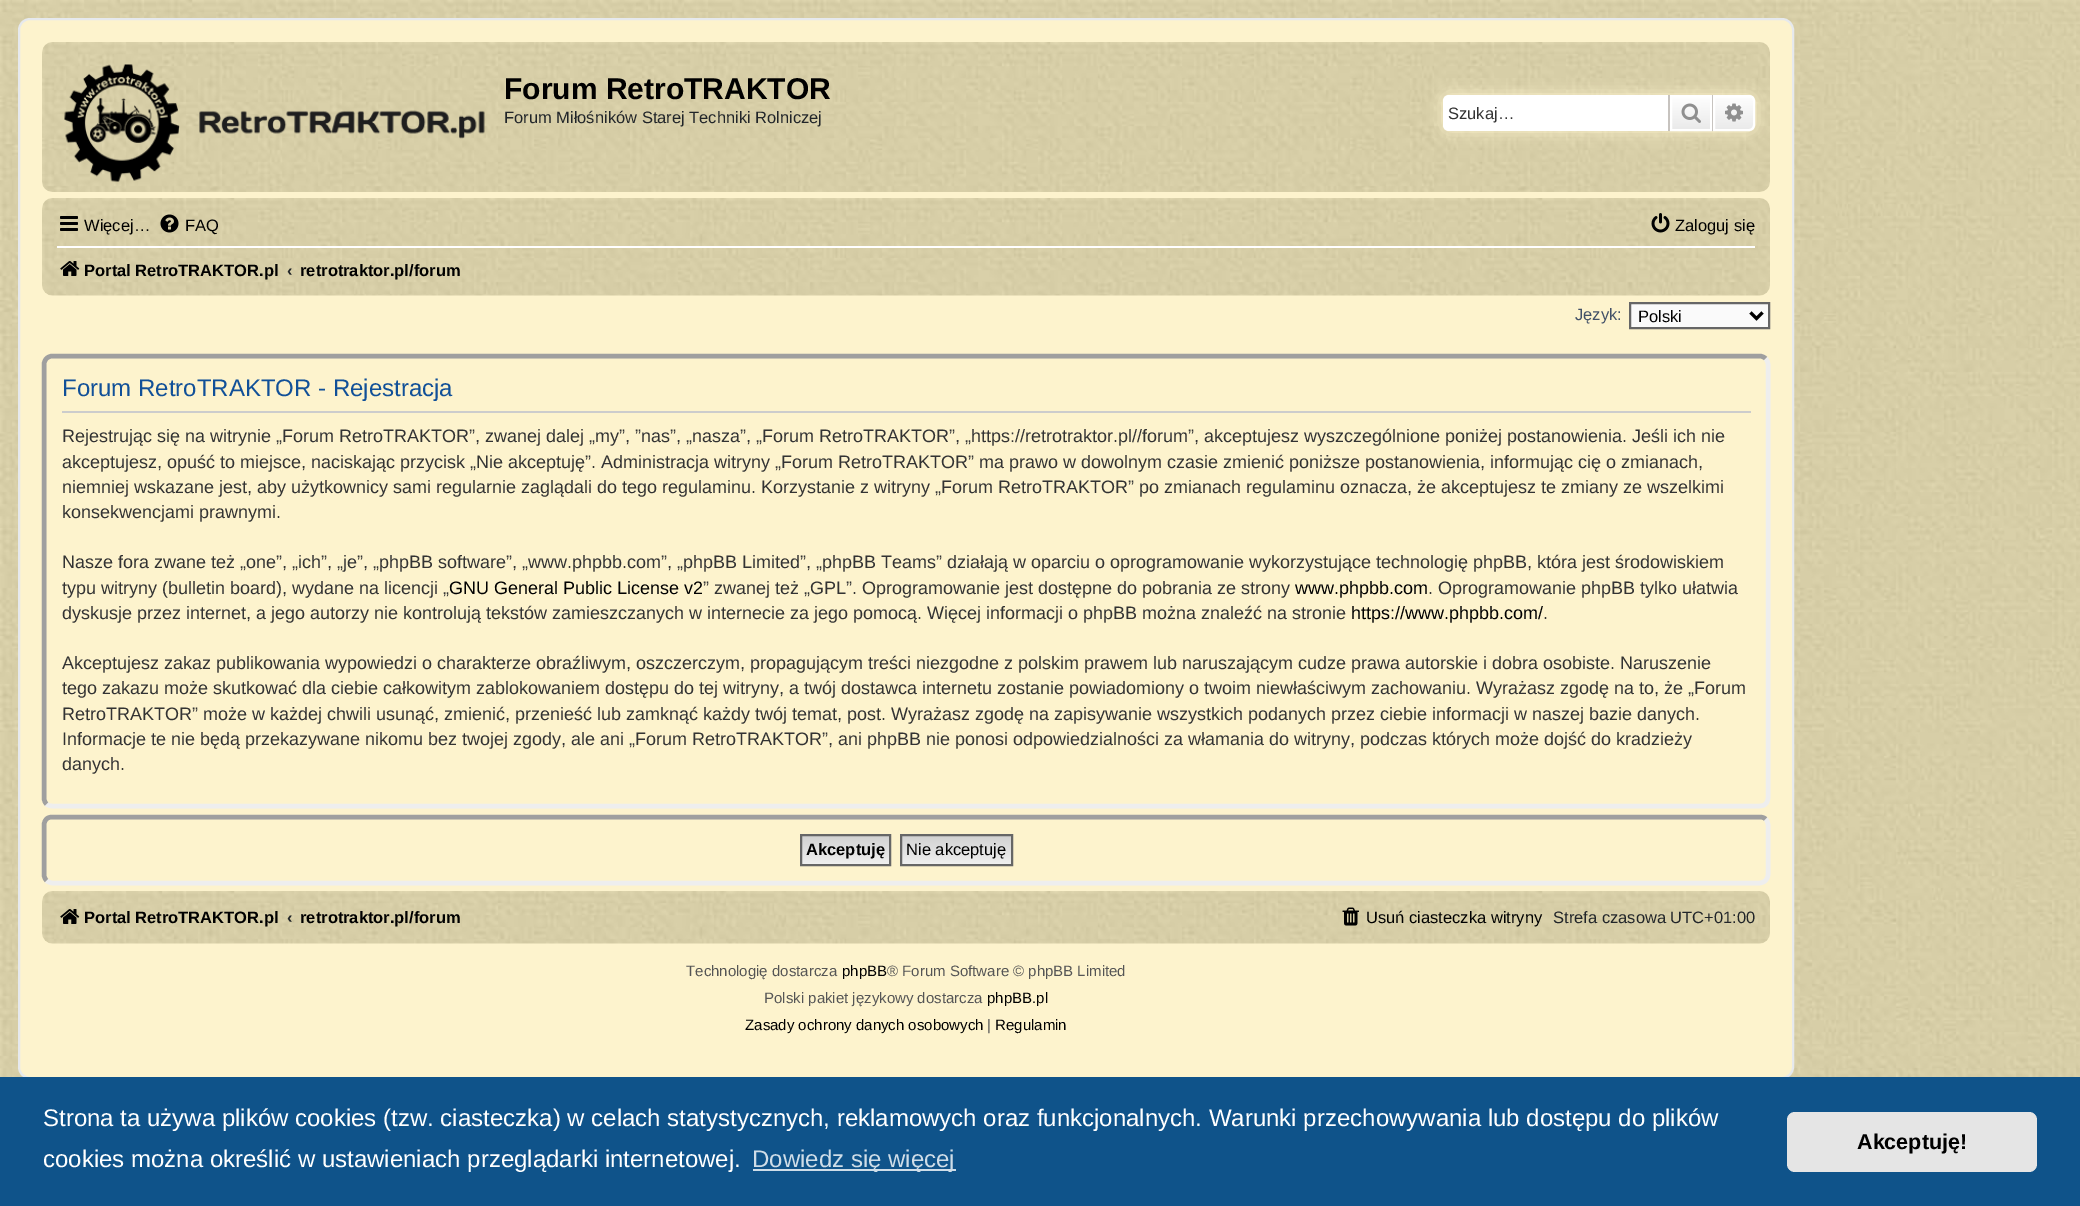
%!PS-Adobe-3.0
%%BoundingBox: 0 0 2080 1206
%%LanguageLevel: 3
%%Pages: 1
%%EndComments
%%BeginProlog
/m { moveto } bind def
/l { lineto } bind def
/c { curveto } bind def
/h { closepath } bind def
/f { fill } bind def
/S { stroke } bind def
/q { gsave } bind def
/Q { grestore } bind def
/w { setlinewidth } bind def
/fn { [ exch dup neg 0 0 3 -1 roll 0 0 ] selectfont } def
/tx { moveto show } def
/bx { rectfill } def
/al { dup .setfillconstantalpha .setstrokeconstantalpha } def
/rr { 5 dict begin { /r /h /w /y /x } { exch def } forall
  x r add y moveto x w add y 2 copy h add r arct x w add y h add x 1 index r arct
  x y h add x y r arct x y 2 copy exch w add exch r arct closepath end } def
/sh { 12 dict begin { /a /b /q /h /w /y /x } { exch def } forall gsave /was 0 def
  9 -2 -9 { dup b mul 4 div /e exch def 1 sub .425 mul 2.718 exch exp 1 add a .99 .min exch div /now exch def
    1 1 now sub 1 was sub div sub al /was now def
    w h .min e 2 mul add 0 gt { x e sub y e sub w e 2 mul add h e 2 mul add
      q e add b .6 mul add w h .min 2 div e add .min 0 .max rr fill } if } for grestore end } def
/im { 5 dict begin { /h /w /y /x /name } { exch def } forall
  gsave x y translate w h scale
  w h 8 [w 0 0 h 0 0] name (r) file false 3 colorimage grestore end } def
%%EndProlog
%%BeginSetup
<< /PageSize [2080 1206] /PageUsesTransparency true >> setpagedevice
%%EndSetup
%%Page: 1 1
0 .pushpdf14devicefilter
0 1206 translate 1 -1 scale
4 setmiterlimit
1 setgray
0 0 2080 1206 bx
(image0.raw) 0 0 2080 1077 im
0.992 0.953 0.804 setrgbcolor
19 19 1774 1059 11 rr q f Q
0.902 0.914 0.929 setrgbcolor
2 w
S
(image1.raw) 42 42 1728 150 im
(image2.raw) 64 64 421 118 im
/LiberationSans-Bold 30 fn
0 setgray
(Forum RetroTRAKTOR) 504 99 tx
/LiberationSans-Regular 16.5 fn
0.129 0.145 0.161 setrgbcolor
(Forum Miłośników Starej Techniki Rolniczej) 504 123 tx
0.992 0.953 0.804 setrgbcolor
1443 95 312 36 6 7.5 1 sh
1 setgray
1449 95 m 1668 95 l 1668 131 l 1449 131 l 1445.5 131 1443 128.5 1443 125 c 1443 101 l 1443 97.5 1445.5 95 1449 95 c h f
0.2 setgray
(Szukaj…) 1448 119 tx
q 1672 97 m 1710 97 l 1710 129 l 1672 129 l h clip newpath
<< /ShadingType 2 /ColorSpace /DeviceRGB /Coords [1691 95 1691 131] /Extend [true true] /Function << /FunctionType 2 /Domain [0 1] /C0 [1 1 1] /C1 [0.914 0.914 0.914] /N 1 >> >> shfill Q
1 setgray
1671 96 40 34 rectstroke
0.78 0.765 0.749 setrgbcolor
1712 95 1 36 bx
1668 95 2 36 bx
(image3.raw) 1681 103 20 20 im
q 1714 96 m 1749 96 l 1752 96 1754 98 1754 101 c 1754 125 l 1754 128 1752 130 1749 130 c 1714 130 l h clip newpath
<< /ShadingType 2 /ColorSpace /DeviceRGB /Coords [1734 95 1734 131] /Extend [true true] /Function << /FunctionType 2 /Domain [0 1] /C0 [1 1 1] /C1 [0.914 0.914 0.914] /N 1 >> >> shfill Q
1 setgray
1714 96 m 1749 96 l 1752 96 1754 98 1754 101 c 1754 125 l 1754 128 1752 130 1749 130 c 1714 130 l h S
(image4.raw) 1725 103 18 19 im
(image5.raw) 42 198 1728 98 im
(image6.raw) 60 216 18 15 im
0 setgray
(Więcej…) 84 231 tx
(image7.raw) 160 214 19 19 im
(FAQ) 185 231 tx
(image8.raw) 1651 213 19 20 im
(Zaloguj się) 1675 231 tx
1 setgray
57 246 1698 2 bx
(image9.raw) 60 261 20 15 im
/LiberationSans-Bold 16.5 fn
0 setgray
(Portal RetroTRAKTOR.pl) 84 276 tx
0.129 0.145 0.161 setrgbcolor
(‹) 287 276 tx
0 setgray
(retrotraktor.pl/forum) 300 276 tx
/LiberationSans-Regular 16.5 fn
0.259 0.314 0.404 setrgbcolor
(Język:) 1575 320 tx
0.98 setgray
1630 303 m 1769 303 l 1769 328 l 1630 328 l h q f Q
0.4 setgray
S
0 setgray
3 w
1750.5 312.5 m 1756.5 318.5 l 1762.5 312.5 l S
(Polski) 1638 322 tx
0.933 setgray
4.5 w
1765.5 358.5 m 1767 360 1768 362.5 1768 364.5 c 1768 798 l 1768 800 1767 802.5 1765.5 804 c 1764 805.5 1761.5 806 1759.5 806 c 52.5 806 l 50.5 806 48 805.5 46.5 804 c S
0.624 setgray
46.5 804 m 45 802.5 44 800 44 798 c 44 364.5 l 44 362.5 45 360 46.5 358.5 c 48 357 50.5 356 52.5 356 c 1759.5 356 l 1761.5 356 1764 357 1765.5 358.5 c S
0.8 setgray
62 411 1689 2 bx
/LiberationSans-Regular 24 fn
0.067 0.314 0.596 setrgbcolor
(Forum RetroTRAKTOR - Rejestracja) 62 396 tx
/LiberationSans-Regular 18 fn
0.2 setgray
(Rejestrując się na witrynie „Forum RetroTRAKTOR”, zwanej dalej „my”, ”nas”, „nasza”, „Forum RetroTRAKTOR”, „https://retrotraktor.pl//forum”, akceptujesz wyszczególnione poniżej postanowienia. Jeśli ich nie) 62 442 tx
(akceptujesz, opuść to miejsce, naciskając przycisk „Nie akceptuję”. Administracja witryny „Forum RetroTRAKTOR” ma prawo w dowolnym czasie zmienić poniższe postanowienia, informując cię o zmianach,) 62 468 tx
(niemniej wskazane jest, aby użytkownicy sami regularnie zaglądali do tego regulaminu. Korzystanie z witryny „Forum RetroTRAKTOR” po zmianach regulaminu oznacza, że akceptujesz te zmiany ze wszelkimi) 62 493 tx
(konsekwencjami prawnymi.) 62 518 tx
(Nasze fora zwane też „one”, „ich”, „je”, „phpBB software”, „www.phpbb.com”, „phpBB Limited”, „phpBB Teams” działają w oparciu o oprogramowanie wykorzystujące technologię phpBB, która jest środowiskiem) 62 568 tx
(typu witryny \(bulletin board\), wydane na licencji „) 62 594 tx
0 setgray
(GNU General Public License v2) 449 594 tx
0.2 setgray
(” zwanej też „GPL”. Oprogramowanie jest dostępne do pobrania ze strony) 703 594 tx
0 setgray
(www.phpbb.com) 1295 594 tx
0.2 setgray
(. Oprogramowanie phpBB tylko ułatwia) 1428 594 tx
(dyskusje przez internet, a jego autorzy nie kontrolują tekstów zamieszczanych w internecie za jego pomocą. Więcej informacji o phpBB można znaleźć na stronie) 62 619 tx
0 setgray
(https://www.phpbb.com/) 1351 619 tx
0.2 setgray
(.) 1543 619 tx
(Akceptujesz zakaz publikowania wypowiedzi o charakterze obraźliwym, oszczerczym, propagującym treści niezgodne z polskim prawem lub naruszającym cudze prawa autorskie i dobra osobiste. Naruszenie) 62 669 tx
(tego zakazu może skutkować dla ciebie całkowitym zablokowaniem dostępu do tej witryny, a twój dostawca internetu zostanie powiadomiony o twoim niewłaściwym zachowaniu. Wyrażasz zgodę na to, że „Forum) 62 694 tx
(RetroTRAKTOR” może w każdej chwili usunąć, zmienić, przenieść lub zamknąć każdy twój temat, post. Wyrażasz zgodę na zapisywanie wszystkich podanych przez ciebie informacji w naszej bazie danych.) 62 720 tx
(Informacje te nie będą przekazywane nikomu bez twojej zgody, ale ani „Forum RetroTRAKTOR”, ani phpBB nie ponosi odpowiedzialności za włamania do witryny, podczas których może dojść do kradzieży) 62 745 tx
(danych.) 62 770 tx
0.933 setgray
1765.5 819 m 1767 820.5 1768 823 1768 825 c 1768 874.5 l 1768 876.5 1767 879 1765.5 880.5 c 1764 882 1761.5 883 1759.5 883 c 52.5 883 l 50.5 883 48 882 46.5 880.5 c S
0.624 setgray
46.5 880.5 m 45 879 44 876.5 44 874.5 c 44 825 l 44 823 45 820.5 46.5 819 c 48 817.5 50.5 817 52.5 817 c 1759.5 817 l 1761.5 817 1764 817.5 1765.5 819 c S
q 802 836 m 889 836 l 889 864 l 802 864 l h clip newpath
<< /ShadingType 2 /ColorSpace /DeviceRGB /Coords [845 836 845 864] /Extend [true true] /Function << /FunctionType 2 /Domain [0 1] /C0 [0.824 0.824 0.824] /C1 [0.937 0.937 0.937] /N 1 >> >> shfill Q
0.4 setgray
2 w
801 835 89 30 rectstroke
/LiberationSans-Bold 16.5 fn
0 setgray
(Akceptuję) 806 855 tx
q 902 836 m 1011 836 l 1011 864 l 902 864 l h clip newpath
<< /ShadingType 2 /ColorSpace /DeviceRGB /Coords [956 836 956 864] /Extend [true true] /Function << /FunctionType 2 /Domain [0 1] /C0 [0.824 0.824 0.824] /C1 [0.937 0.937 0.937] /N 1 >> >> shfill Q
0.4 setgray
901 835 111 30 rectstroke
/LiberationSans-Regular 16.5 fn
0 setgray
(Nie akceptuję) 906 855 tx
(image10.raw) 42 891 1728 53 im
(image11.raw) 60 909 20 15 im
/LiberationSans-Bold 16.5 fn
(Portal RetroTRAKTOR.pl) 84 923 tx
0.129 0.145 0.161 setrgbcolor
(‹) 287 923 tx
0 setgray
(retrotraktor.pl/forum) 300 923 tx
(image12.raw) 1342 907 17 19 im
/LiberationSans-Regular 16.5 fn
(Usuń ciasteczka witryny) 1366 923 tx
0.129 0.145 0.161 setrgbcolor
(Strefa czasowa UTC+01:00) 1553 923 tx
/LiberationSans-Regular 15 fn
0.333 setgray
(Technologię dostarcza) 686 976 tx
0 setgray
(phpBB) 842 976 tx
0.333 setgray
(® Forum Software © phpBB Limited) 887 976 tx
(Polski pakiet językowy dostarcza) 764 1003 tx
0 setgray
(phpBB.pl) 987 1003 tx
(Zasady ochrony danych osobowych) 745 1030 tx
0.333 setgray
(|) 987 1030 tx
0 setgray
(Regulamin) 995 1030 tx
0.059 0.325 0.541 setrgbcolor
0 1077 2080 129 bx
/LiberationSans-Regular 24 fn
1 setgray
(Strona ta używa plików cookies \(tzw. ciasteczka\) w celach statystycznych, reklamowych oraz funkcjonalnych. Warunki przechowywania lub dostępu do plików) 43 1126 tx
(cookies można określić w ustawieniach przeglądarki internetowej.) 43 1167 tx
0.812 0.867 0.91 setrgbcolor
753 1169 203 2 bx
(Dowiedz się więcej) 752 1167 tx
0.898 setgray
1787 1112 250 60 8 rr f
/LiberationSans-Bold 21.5 fn
0 setgray
(Akceptuję!) 1857 1149 tx
.poppdf14devicefilter showpage
%%EOF
